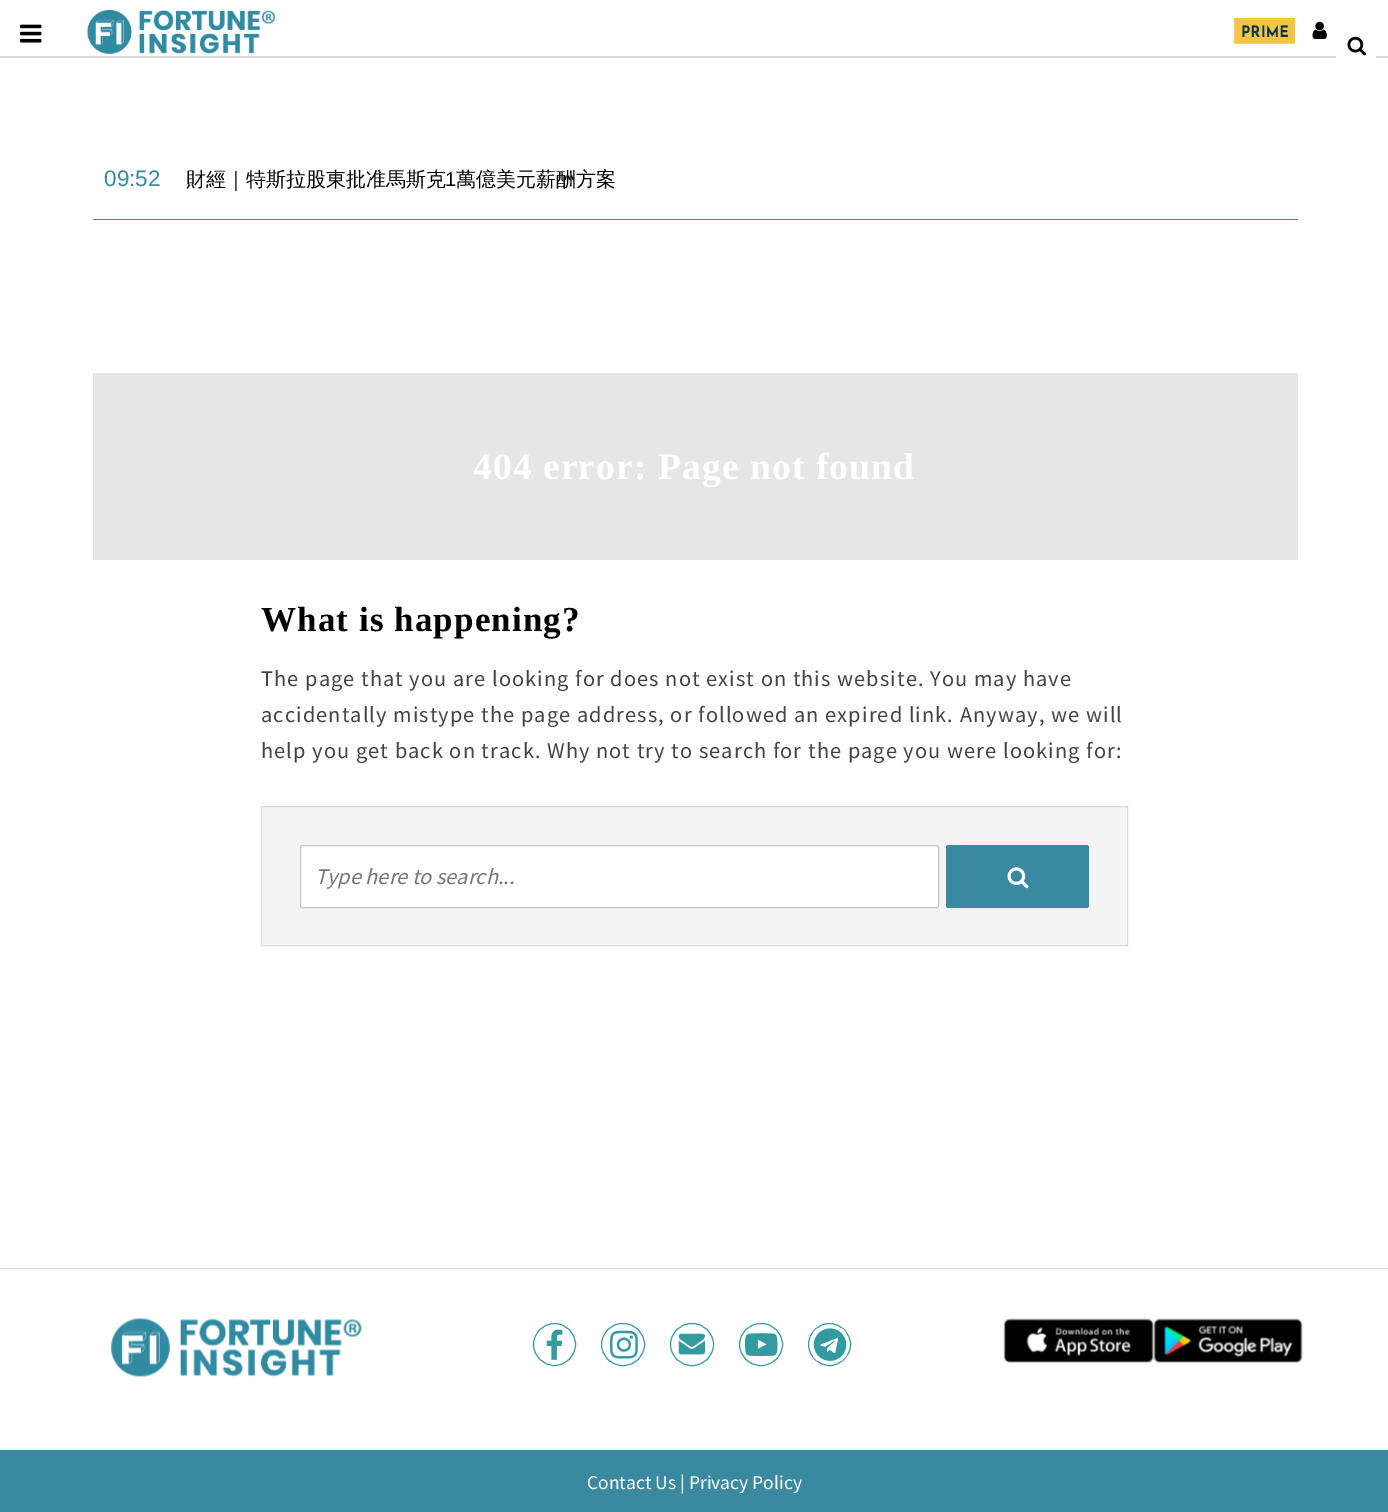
%!PS-Adobe-3.0
%%BoundingBox: 0 0 1388 1512
%%LanguageLevel: 3
%%Pages: 1
%%EndComments
%%BeginProlog
/m { moveto } bind def
/l { lineto } bind def
/h { closepath } bind def
/f { fill } bind def
/S { stroke } bind def
/q { gsave } bind def
/Q { grestore } bind def
/fn { [ exch dup neg 0 0 3 -1 roll 0 0 ] selectfont } def
/tx { moveto show } def
/bx { rectfill } def
/al { dup .setfillconstantalpha .setstrokeconstantalpha } def
/ci { newpath 0 360 arc closepath } def
/rr { 5 dict begin { /r /h /w /y /x } { exch def } forall
  x r add y moveto x w add y 2 copy h add r arct x w add y h add x 1 index r arct
  x y h add x y r arct x y 2 copy exch w add exch r arct closepath end } def
/im { 5 dict begin { /h /w /y /x /name } { exch def } forall
  gsave x y translate w h scale
  w h 8 [w 0 0 h 0 0] name (r) file false 3 colorimage grestore end } def
%%EndProlog
%%BeginSetup
<< /PageSize [1388 1512] /PageUsesTransparency true >> setpagedevice
%%EndSetup
%%Page: 1 1
0 .pushpdf14devicefilter
0 1512 translate 1 -1 scale
4 setmiterlimit
1 setgray
0 0 1388 1512 bx
0.851 setgray
0 -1 m 0 0 l 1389 0 l 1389 56 l 0 56 l 0 58 l 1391 58 l 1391 -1 l h f
(image0.raw) 20 24 22 19 im
(image1.raw) 87 10 188 44 im
(image2.raw) 1233 17 62 27 im
(image3.raw) 1312 21 15 18 im
1 setgray
1336 56 40 2 bx
(image4.raw) 1347 36 19 20 im
/LiberationSans-Regular 22.5 fn
0.224 0.541 0.631 setrgbcolor
(09:52) 104 186 tx
/WenQuanYiZenHei-Medium 20 fn
0 setgray
(財經｜特斯拉股東批准馬斯克) 186 186 tx
/LiberationSans-Regular 20 fn
(1) 445 186 tx
/WenQuanYiZenHei-Medium 20 fn
(萬億美元薪酬方案) 456 186 tx
0.298 0.537 0.624 setrgbcolor
93 219 1205 1 bx
0.902 setgray
93 373 1205 187 bx
/LiberationSerif-Bold 37.5 fn
1 setgray
473 479 m 1.1 0 (404 error: Page not found) ashow
/LiberationSerif-Bold 35 fn
0 setgray
261 631 m 1.1 0 (What is happening?) ashow
/NotoSansHK-Regular 20 fn
0.267 setgray
261 686 m 1.1 0 (The page that you are looking for does not exist on this website. You may have) ashow
261 722 m 1.1 0 (accidentally mistype the page address, or followed an expired link. Anyway, we will) ashow
261 758 m 1.1 0 (help you get back on track. Why not try to search for the page you were looking for:) ashow
0.957 setgray
261.5 806.5 m 1127.5 806.5 l 1127.5 945.5 l 261.5 945.5 l h q f Q
0.855 setgray
S
1 setgray
300 845 639 63 2.5 rr f
0.3 al
0.267 setgray
300.5 845.5 638 62 2 rr S
/NotoSansHK-Italic 20 fn
1 al
0.459 setgray
(Type here to search...) 315 884 tx
0.224 0.541 0.631 setrgbcolor
946 845 143 63 2.5 rr f
(image5.raw) 1007 867 22 22 im
0.867 setgray
0 1268 1388 1 bx
(image6.raw) 111 1318 251 59 im
0.224 0.604 0.631 setrgbcolor
554.5 1344.5 21 ci S
(image7.raw) 546 1329 17 31 im
601.5 1323.5 43 42 21 rr S
(image8.raw) 610 1330 28 29 im
670.5 1323.5 43 42 21 rr S
(image9.raw) 678 1333 27 22 im
739.5 1323.5 43 42 21 rr S
(image10.raw) 745 1333 33 24 im
829.5 1344.5 21 ci S
(image11.raw) 813 1328 34 33 im
(image12.raw) 1003 1318 151 45 im
(image13.raw) 1153 1318 150 45 im
0.224 0.541 0.631 setrgbcolor
0 1450 1388 62 bx
/NotoSansHK-Regular 17.5 fn
1 setgray
(Contact Us | Privacy Policy) 587 1489 tx
.poppdf14devicefilter showpage
%%EOF
